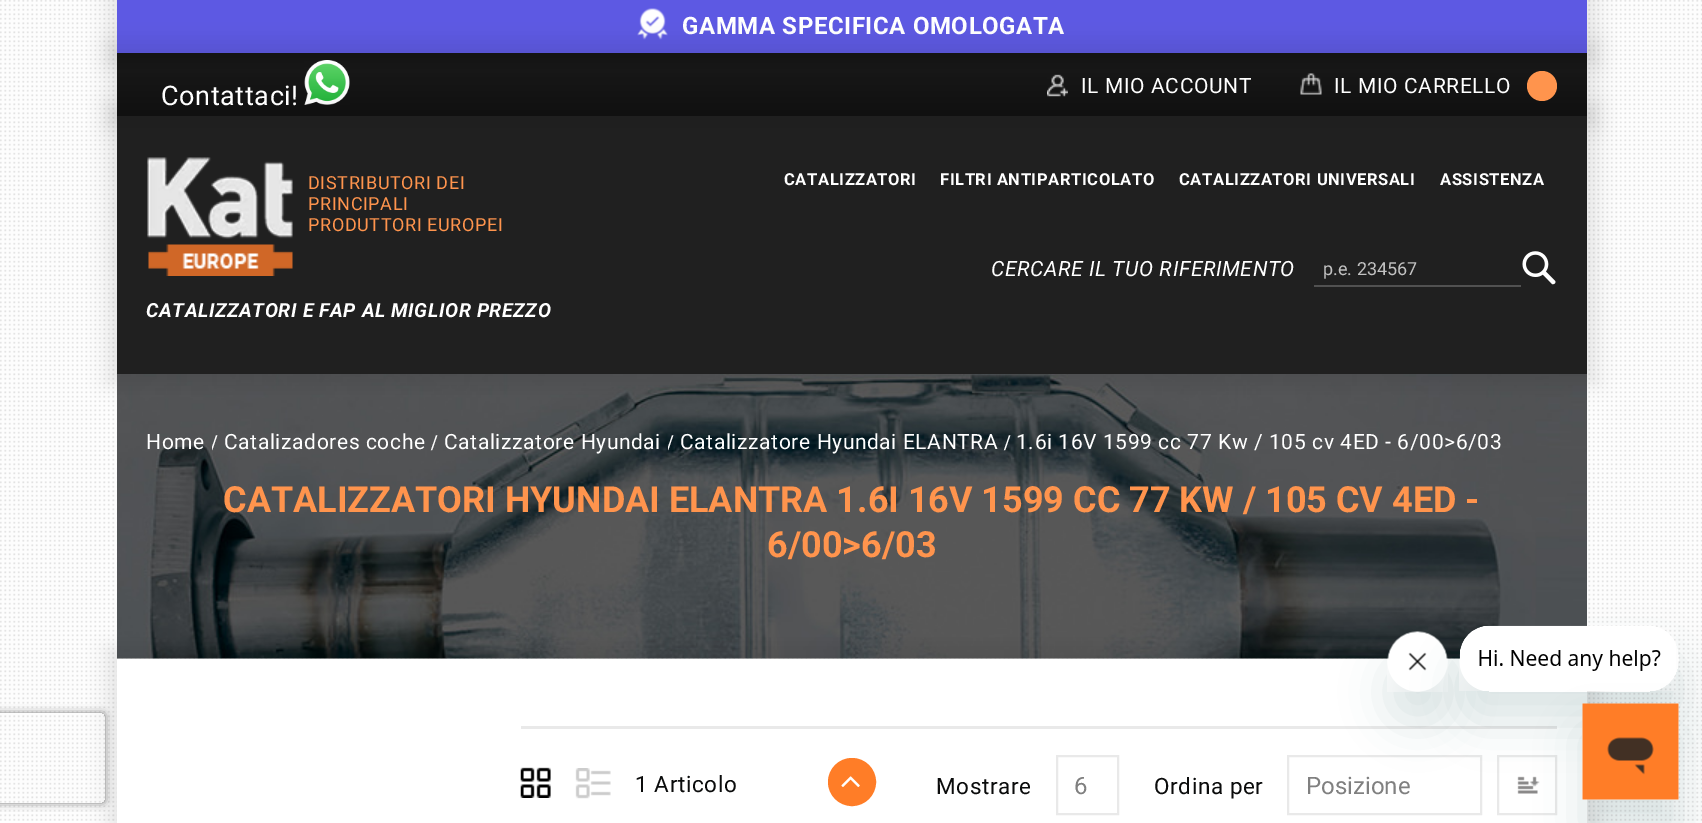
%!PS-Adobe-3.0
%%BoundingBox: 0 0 1702 823
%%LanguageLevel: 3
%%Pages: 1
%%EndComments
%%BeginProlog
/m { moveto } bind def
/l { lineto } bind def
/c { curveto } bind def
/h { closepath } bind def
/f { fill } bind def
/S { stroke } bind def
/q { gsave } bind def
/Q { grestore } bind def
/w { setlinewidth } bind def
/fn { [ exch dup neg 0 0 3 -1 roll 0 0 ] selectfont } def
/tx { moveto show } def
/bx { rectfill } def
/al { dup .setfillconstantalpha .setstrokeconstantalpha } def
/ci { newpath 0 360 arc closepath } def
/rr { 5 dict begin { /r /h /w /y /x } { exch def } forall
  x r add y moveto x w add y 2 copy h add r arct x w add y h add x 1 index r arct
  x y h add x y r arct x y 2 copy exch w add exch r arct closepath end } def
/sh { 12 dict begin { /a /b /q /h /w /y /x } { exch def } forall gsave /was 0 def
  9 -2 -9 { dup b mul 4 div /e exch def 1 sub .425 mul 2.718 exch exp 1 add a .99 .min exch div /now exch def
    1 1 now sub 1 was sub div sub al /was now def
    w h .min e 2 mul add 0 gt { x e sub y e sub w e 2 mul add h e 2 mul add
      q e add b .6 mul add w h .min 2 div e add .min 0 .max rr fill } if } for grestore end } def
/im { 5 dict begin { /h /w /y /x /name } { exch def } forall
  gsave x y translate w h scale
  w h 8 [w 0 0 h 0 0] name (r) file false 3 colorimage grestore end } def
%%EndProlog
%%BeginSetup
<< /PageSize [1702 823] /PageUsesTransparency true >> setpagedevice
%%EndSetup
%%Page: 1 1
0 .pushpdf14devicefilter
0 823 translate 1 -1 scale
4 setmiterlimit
1 setgray
0 0 1702 823 bx
(image0.raw) 0 0 1702 821 im
0 setgray
107 -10 1491 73 0 9 0.08 sh
0.365 0.349 0.89 setrgbcolor
117 0 1470 53 bx
(image1.raw) 637 8 31 32 im
/Roboto-Bold 24 fn
1 setgray
682 34 m 0.6 0 (GAMMA SPECIFICA OMOLOGATA) ashow
(image7.raw) 117 374 1470 285 im
0 setgray
107 105 1491 279 0 9 0.08 sh
0.125 setgray
117 116 1470 258 bx
0 setgray
107 42 1491 84 0 9 0.08 sh
q 117 53 m 1587 53 l 1587 116 l 117 116 l h clip newpath
<< /ShadingType 2 /ColorSpace /DeviceRGB /Coords [852 116 852 53] /Extend [true true] /Function << /FunctionType 3 /Domain [0 1] /Functions [<< /FunctionType 2 /Domain [0 1] /C0 [0.063 0.063 0.063] /C1 [0.09 0.09 0.09] /N 1 >> << /FunctionType 2 /Domain [0 1] /C0 [0.09 0.09 0.09] /C1 [0.078 0.078 0.078] /N 1 >>] /Bounds [0.74] /Encode [0 1 0 1] >> >> shfill Q
/Roboto-Regular 27 fn
1 setgray
161 105 m 0.6 0 (Contattaci!) ashow
(image2.raw) 304 60 46 45 im
(image3.raw) 1047 74 21 23 im
/Roboto-Regular 21 fn
1081 93 m 0.6 0 (IL MIO ACCOUNT) ashow
(image4.raw) 1300 73 22 22 im
1334 93 m 0.6 0 (IL MIO CARRELLO) ashow
1 0.58 0.302 setrgbcolor
1542 86 15 ci f
(image5.raw) 147 157 146 119 im
/Roboto-Regular 18 fn
308 189 m 0.6 0 (DISTRIBUTORI DEI) ashow
308 210 m 0.6 0 (PRINCIPALI) ashow
308 231 m 0.6 0 (PRODUTTORI EUROPEI) ashow
/Roboto-BoldItalic 19.5 fn
1 setgray
146 317 m 0.6 0 (CATALIZZATORI E FAP AL MIGLIOR PREZZO) ashow
/Roboto-Bold 16.5 fn
784 185 m 0.6 0 (CATALIZZATORI) ashow
940 185 m 0.6 0 (FILTRI ANTIPARTICOLATO) ashow
1179 185 m 0.6 0 (CATALIZZATORI UNIVERSALI) ashow
1440 185 m 0.6 0 (ASSISTENZA) ashow
/Roboto-Italic 21 fn
991 276 m 0.6 0 (CERCARE IL TUO RIFERIMENTO) ashow
0.318 setgray
1314 285 207 2 bx
/Roboto-Regular 18 fn
0.761 setgray
(p.e. 234567) 1323 275 tx
(image6.raw) 1522 251 34 34 im
/Roboto-Regular 21 fn
1 setgray
146 449 m 0.6 0 (Home) ashow
q
212 429 6 27 rectclip
/LiberationSerif-Bold 22.5 fn
211 450 m 0.6 0 (/) ashow
Q
224 449 m 0.6 0 (Catalizadores coche) ashow
/LiberationSerif-Bold 22.5 fn
431 450 m 0.6 0 (/) ashow
/Roboto-Regular 21 fn
444 449 m 0.6 0 (Catalizzatore Hyundai) ashow
q
668 429 6 27 rectclip
/LiberationSerif-Bold 22.5 fn
667 450 m 0.6 0 (/) ashow
Q
680 449 m 0.6 0 (Catalizzatore Hyundai ELANTRA) ashow
/LiberationSerif-Bold 22.5 fn
1004 450 m 0.6 0 (/) ashow
/Roboto-Regular 21 fn
1016 449 m 0.6 0 (1.6i 16V 1599 cc 77 Kw / 105 cv 4ED - 6/00>6/03) ashow
/Roboto-Bold 36 fn
1 0.58 0.302 setrgbcolor
(CATALIZZATORI HYUNDAI ELANTRA 1.6I 16V 1599 CC 77 KW / 105 CV 4ED -) 223 512 tx
(6/00>6/03) 767 557 tx
0 setgray
107 648 1491 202 0 9 0.08 sh
1 setgray
117 659 1470 164 bx
1 0.49 0.153 setrgbcolor
852 782 22.5 ci q f Q
3 w
S
(image8.raw) 841 776 19 11 im
0.914 setgray
521 726 1036 3 bx
(image9.raw) 520 767 31 31 im
(image10.raw) 575 768 36 31 im
/Roboto-Regular 22.5 fn
0.043 0.047 0.047 setrgbcolor
635 792 m 0.6 0 (1 Articolo) ashow
936 794 m 0.6 0 (Mostrare) ashow
0.914 setgray
2 w
1057 756 61 58 rectstroke
/Roboto-Regular 24 fn
0.502 setgray
(6) 1074 794 tx
/Roboto-Regular 22.5 fn
0.043 0.047 0.047 setrgbcolor
1154 794 m 0.6 0 (Ordina per) ashow
0.914 setgray
1288 756 193 58 rectstroke
/Roboto-Regular 24 fn
0.502 setgray
(Posizione) 1306 794 tx
(image11.raw) 1517 776 23 18 im
0.914 setgray
1498 756 58 58 rectstroke
q
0 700 m 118 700 l 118 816 l 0 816 l h -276 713 m 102 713 l 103.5 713 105 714.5 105 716 c 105 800 l 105 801.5 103.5 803 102 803 c -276 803 l -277.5 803 -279 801.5 -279 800 c -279 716 l -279 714.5 -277.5 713 -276 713 c h eoclip newpath
0.502 setgray
-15 713 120 90 3 4 1 sh
Q
0.09 0.286 0.302 setrgbcolor
1388 662 60 60 30 22.5 0.15 sh
(image13.raw) 1387 631 61 61 im
q
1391 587 m 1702 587 l 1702 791 l 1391 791 l h 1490 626 m 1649 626 l 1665.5 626 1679 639.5 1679 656 c 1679 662 l 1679 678.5 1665.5 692 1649 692 c 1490 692 l 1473.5 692 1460 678.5 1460 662 c 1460 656 l 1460 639.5 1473.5 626 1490 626 c h eoclip newpath
1460 656 219 66 30 22.5 0.15 sh
Q
(image12.raw) 1459 625 217 66 im
1583 734 96 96 0 22.5 0.15 sh
(image14.raw) 1582 703 97 97 im
.poppdf14devicefilter showpage
%%EOF
